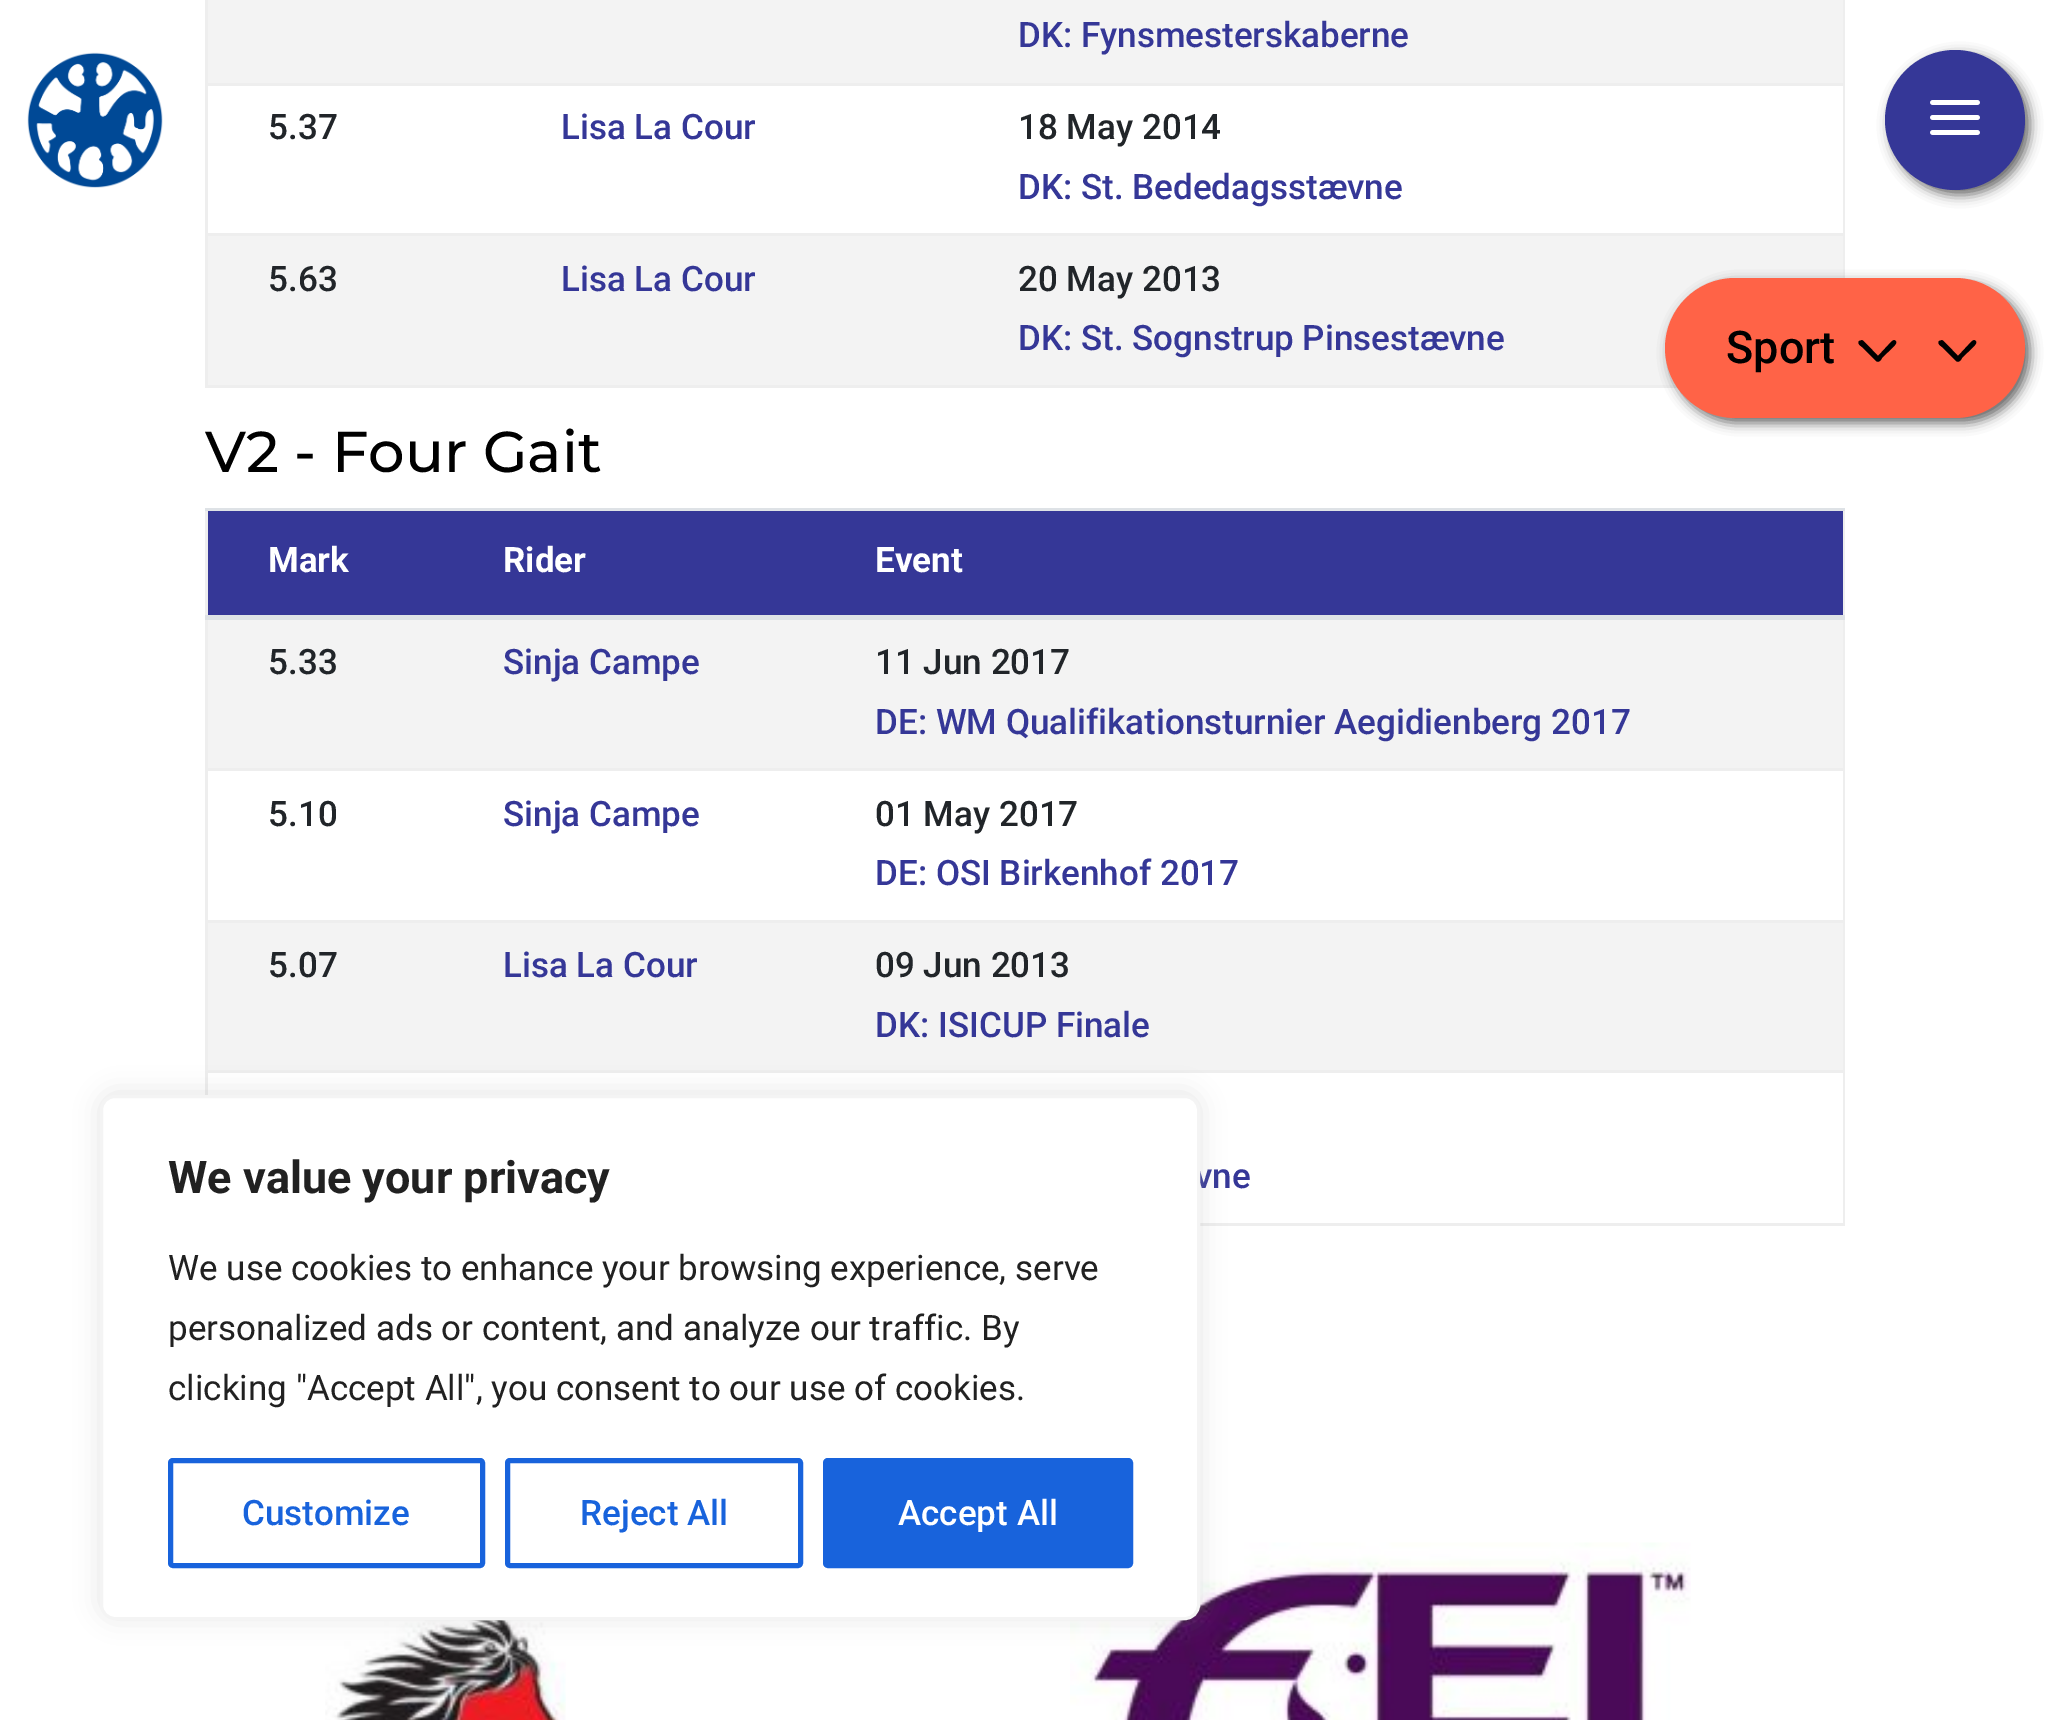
%!PS-Adobe-3.0
%%BoundingBox: 0 0 2048 1720
%%LanguageLevel: 3
%%Pages: 1
%%EndComments
%%BeginProlog
/m { moveto } bind def
/l { lineto } bind def
/c { curveto } bind def
/h { closepath } bind def
/f { fill } bind def
/S { stroke } bind def
/q { gsave } bind def
/Q { grestore } bind def
/w { setlinewidth } bind def
/fn { [ exch dup neg 0 0 3 -1 roll 0 0 ] selectfont } def
/tx { moveto show } def
/bx { rectfill } def
/al { dup .setfillconstantalpha .setstrokeconstantalpha } def
/ci { newpath 0 360 arc closepath } def
/rr { 5 dict begin { /r /h /w /y /x } { exch def } forall
  x r add y moveto x w add y 2 copy h add r arct x w add y h add x 1 index r arct
  x y h add x y r arct x y 2 copy exch w add exch r arct closepath end } def
/sh { 12 dict begin { /a /b /q /h /w /y /x } { exch def } forall gsave /was 0 def
  9 -2 -9 { dup b mul 4 div /e exch def 1 sub .425 mul 2.718 exch exp 1 add a .99 .min exch div /now exch def
    1 1 now sub 1 was sub div sub al /was now def
    w h .min e 2 mul add 0 gt { x e sub y e sub w e 2 mul add h e 2 mul add
      q e add b .6 mul add w h .min 2 div e add .min 0 .max rr fill } if } for grestore end } def
/im { 5 dict begin { /h /w /y /x /name } { exch def } forall
  gsave x y translate w h scale
  w h 8 [w 0 0 h 0 0] name (r) file false 3 colorimage grestore end } def
%%EndProlog
%%BeginSetup
<< /PageSize [2048 1720] /PageUsesTransparency true >> setpagedevice
%%EndSetup
%%Page: 1 1
0 .pushpdf14devicefilter
0 1720 translate 1 -1 scale
4 setmiterlimit
1 setgray
0 0 2048 1720 bx
0.933 setgray
1843 0 2 278 bx
205 385 1473 3 bx
205 0 3 388 bx
0.953 setgray
208 0 1635 83 bx
/Roboto-Medium 35 fn
0.208 0.216 0.592 setrgbcolor
(DK: Fynsmesterskaberne) 1018 47 tx
0.129 0.145 0.161 setrgbcolor
(5.37) 268 139 tx
0.208 0.216 0.592 setrgbcolor
(Lisa La Cour) 561 139 tx
0.933 setgray
205 83 1640 3 bx
0.129 0.145 0.161 setrgbcolor
(18 May 2014) 1018 139 tx
0.208 0.216 0.592 setrgbcolor
(DK: St. Bededagsstævne) 1018 199 tx
0.953 setgray
208 236 1635 149 bx
0.129 0.145 0.161 setrgbcolor
(5.63) 268 291 tx
0.208 0.216 0.592 setrgbcolor
(Lisa La Cour) 561 291 tx
0.933 setgray
205 233 1640 3 bx
0.129 0.145 0.161 setrgbcolor
(20 May 2013) 1018 291 tx
0.208 0.216 0.592 setrgbcolor
(DK: St. Sognstrup Pinsestævne) 1018 350 tx
/Montserrat-Medium 57.5 fn
0 setgray
(V2 - Four Gait) 205 472 tx
0.933 setgray
1843 508 2 717 bx
1200 1223 645 3 bx
205 508 3 587 bx
0.208 0.216 0.592 setrgbcolor
208 511 1635 104 bx
/Roboto-Bold 35 fn
1 setgray
(Mark) 268 572 tx
(Rider) 503 572 tx
0.871 0.886 0.902 setrgbcolor
205 508 1640 3 bx
205 615 1640 5 bx
1 setgray
(Event) 875 572 tx
0.953 setgray
208 620 1635 148 bx
/Roboto-Medium 35 fn
0.129 0.145 0.161 setrgbcolor
(5.33) 268 674 tx
0.208 0.216 0.592 setrgbcolor
(Sinja Campe) 503 674 tx
0.129 0.145 0.161 setrgbcolor
(11 Jun 2017) 875 674 tx
0.208 0.216 0.592 setrgbcolor
(DE: WM Qualifikationsturnier Aegidienberg 2017) 875 734 tx
0.129 0.145 0.161 setrgbcolor
(5.10) 268 826 tx
0.208 0.216 0.592 setrgbcolor
(Sinja Campe) 503 826 tx
0.933 setgray
205 768 1640 3 bx
0.129 0.145 0.161 setrgbcolor
(01 May 2017) 875 826 tx
0.208 0.216 0.592 setrgbcolor
(DE: OSI Birkenhof 2017) 875 885 tx
0.953 setgray
208 923 1635 147 bx
0.129 0.145 0.161 setrgbcolor
(5.07) 268 977 tx
0.208 0.216 0.592 setrgbcolor
(Lisa La Cour) 503 977 tx
0.933 setgray
205 920 1640 3 bx
0.129 0.145 0.161 setrgbcolor
(09 Jun 2013) 875 977 tx
0.208 0.216 0.592 setrgbcolor
(DK: ISICUP Finale) 875 1037 tx
0.933 setgray
205 1070 1640 3 bx
0.208 0.216 0.592 setrgbcolor
(vne) 1195 1188 tx
q
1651 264 m 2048 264 l 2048 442 l 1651 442 l h 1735 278 m 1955 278 l 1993.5 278 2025 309.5 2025 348 c 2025 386.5 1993.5 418 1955 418 c 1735 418 l 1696.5 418 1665 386.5 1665 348 c 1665 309.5 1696.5 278 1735 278 c h eoclip newpath
0 setgray
1670 283 360 140 70 6 0.6 sh
Q
1 0.388 0.278 setrgbcolor
1665 278 360 140 70 rr f
/Roboto-Medium 45 fn
0 setgray
(Sport) 1726 363 tx
1892 341 m 1878 356 l 1875 353 1864 341 1862 340 c 1859 341 l 1857 344 1861 346 1862 347 c 1876 361 l 1879 363 1881 360 1882 358 c 1887 353 l 1893 347 1900 342 1894 340 c h 1972 341 m 1958 356 l 1955 353 1944 341 1942 340 c 1939 341 l 1937 344 1941 346 1942 347 c 1956 361 l 1959 363 1961 360 1962 358 c 1967 353 l 1973 347 1980 342 1974 340 c h f
(image0.raw) 325 1620 241 100 im
(image1.raw) 1070 1542 621 178 im
(image2.raw) 27 52 136 136 im
1890 55 140 140 70 6 0.6 sh
0.208 0.216 0.592 setrgbcolor
1955 120 70 ci f
(image3.raw) 1930 100 50 35 im
0.675 0.671 0.671 setrgbcolor
100 1093 1100 525 15 12.5 0.3 sh
1 setgray
101.5 1096.5 1097 522 13.5 rr q f Q
0.957 setgray
3 w
S
/Roboto-Bold 45 fn
0.129 setgray
(We value your privacy) 168 1193 tx
/Roboto-Regular 35 fn
(We use cookies to enhance your browsing experience, serve) 168 1280 tx
(personalized ads or content, and analyze our traffic. By) 168 1340 tx
(clicking "Accept All", you consent to our use of cookies.) 168 1400 tx
0.094 0.388 0.863 setrgbcolor
5 w
170.5 1460.5 312 105 2.5 rr S
/Roboto-Medium 35 fn
(Customize) 242 1525 tx
507.5 1460.5 293 105 2.5 rr S
(Reject All) 580 1525 tx
825.5 1460.5 305 105 2.5 rr q f Q
S
1 setgray
(Accept All) 898 1525 tx
.poppdf14devicefilter showpage
%%EOF
